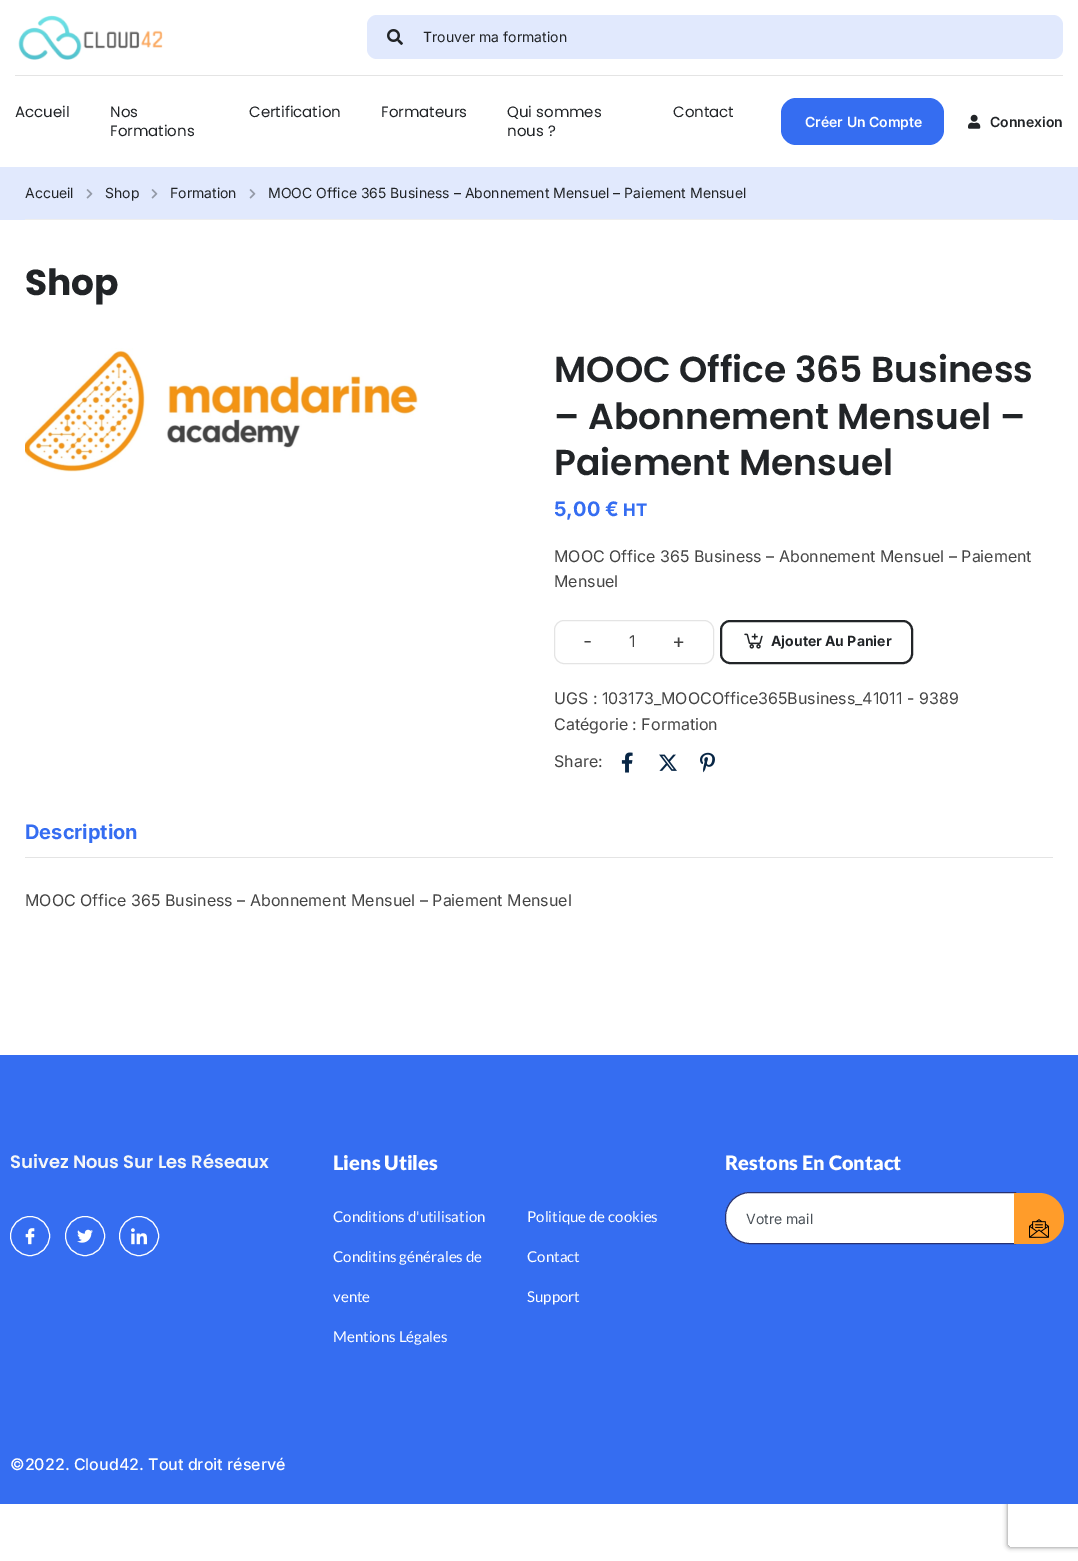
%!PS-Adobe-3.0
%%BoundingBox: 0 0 1078 1561
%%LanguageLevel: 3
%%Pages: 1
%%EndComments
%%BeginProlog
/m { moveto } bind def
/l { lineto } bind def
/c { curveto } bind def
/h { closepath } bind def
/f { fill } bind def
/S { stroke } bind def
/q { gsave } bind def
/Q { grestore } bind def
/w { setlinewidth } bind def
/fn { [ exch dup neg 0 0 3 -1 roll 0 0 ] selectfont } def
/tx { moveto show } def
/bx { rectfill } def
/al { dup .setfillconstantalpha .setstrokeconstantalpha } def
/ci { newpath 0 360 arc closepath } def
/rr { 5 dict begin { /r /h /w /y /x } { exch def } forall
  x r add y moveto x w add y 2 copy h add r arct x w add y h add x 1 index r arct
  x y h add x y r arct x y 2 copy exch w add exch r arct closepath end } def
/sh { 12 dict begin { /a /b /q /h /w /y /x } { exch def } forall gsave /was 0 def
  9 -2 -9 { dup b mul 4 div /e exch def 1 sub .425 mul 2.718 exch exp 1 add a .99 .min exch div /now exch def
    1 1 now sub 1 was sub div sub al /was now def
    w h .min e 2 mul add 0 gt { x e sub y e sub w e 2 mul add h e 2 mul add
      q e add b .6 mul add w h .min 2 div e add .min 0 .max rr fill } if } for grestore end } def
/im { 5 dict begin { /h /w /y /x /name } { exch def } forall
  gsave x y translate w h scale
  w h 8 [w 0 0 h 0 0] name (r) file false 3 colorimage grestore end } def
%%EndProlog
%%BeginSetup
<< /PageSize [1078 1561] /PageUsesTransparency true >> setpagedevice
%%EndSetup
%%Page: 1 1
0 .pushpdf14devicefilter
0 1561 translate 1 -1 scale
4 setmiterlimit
1 setgray
0 0 1078 1561 bx
(image0.raw) 18 15 145 45 im
0.882 0.914 0.992 setrgbcolor
377 15 m 423 15 l 423 59 l 377 59 l 371.5 59 367 54.5 367 49 c 367 25 l 367 19.5 371.5 15 377 15 c h f
(image1.raw) 387 29 16 16 im
423 15 m 1053 15 l 1058.5 15 1063 19.5 1063 25 c 1063 49 l 1063 54.5 1058.5 59 1053 59 c 423 59 l h f
/Inter-Regular 14 fn
0.129 0.141 0.153 setrgbcolor
(Trouver ma formation) 423 42 tx
0.894 setgray
15 75 1048 1 bx
/Poppins-Regular 15 fn
0.129 0.141 0.153 setrgbcolor
(Accueil) 15 117 tx
(Nos) 110 117 tx
(Formations) 110 136 tx
(Certification) 249 117 tx
(Formateurs) 381 117 tx
(Qui sommes) 507 117 tx
(nous ?) 507 136 tx
(Contact) 673 117 tx
0.208 0.427 0.945 setrgbcolor
796 113 m 923 113 l 923 130 l 781 130 l 781 113 l h f
796 98 m 929 98 l 937 98 944 105 944 113 c 944 130 l 944 138 937 145 929 145 c 796 145 l 788 145 781 138 781 130 c 781 113 l 781 105 788 98 796 98 c h 796 113 m 923 113 l 923 130 l 781 130 l 781 113 l h eofill
/Inter-SemiBold 14 fn
1 setgray
(Créer Un Compte) 805 127 tx
(image2.raw) 968 114 13 15 im
0.129 0.141 0.153 setrgbcolor
(Connexion) 990 127 tx
0.882 0.914 0.992 setrgbcolor
0 167 1078 53 bx
0.933 setgray
25 219 1028 1 bx
/Inter-Regular 14 fn
0.129 0.141 0.153 setrgbcolor
(Accueil) 25 198 tx
(image3.raw) 86 189 7 10 im
(Shop) 105 198 tx
(image3.raw) 151 189 7 10 im
(Formation) 170 198 tx
(image3.raw) 249 189 7 10 im
(MOOC Office 365 Business – Abonnement Mensuel – Paiement Mensuel) 268 198 tx
/Poppins-Bold 36 fn
(Shop) 25 295 tx
(image4.raw) 25 348 393 124 im
/Poppins-SemiBold 36 fn
(MOOC Office 365 Business) 554 382 tx
(– Abonnement Mensuel –) 554 429 tx
(Paiement Mensuel) 554 475 tx
/Inter-Bold 20 fn
0.208 0.427 0.945 setrgbcolor
(5,00 €) 554 516 tx
/Inter-Bold 17 fn
(HT) 623 516 tx
/Inter-Regular 16 fn
0.267 setgray
(MOOC Office 365 Business – Abonnement Mensuel – Paiement) 554 562 tx
(Mensuel) 554 587 tx
0.894 setgray
554.5 620.5 159 43 9.5 rr S
/Inter-Regular 20 fn
0.267 setgray
(-) 583 648 tx
/Inter-Regular 16 fn
(1) 629 647 tx
/Inter-Regular 20 fn
(+) 672 648 tx
0.129 0.141 0.153 setrgbcolor
2 w
721 621 191 42 9 rr S
(image5.raw) 744 633 19 16 im
/Inter-Bold 14 fn
(Ajouter Au Panier) 771 646 tx
/Inter-Regular 16 fn
0.267 setgray
(UGS : 103173_MOOCOffice365Business_41011 - 9389) 554 704 tx
(Catégorie : Formation) 554 730 tx
(Share:) 554 767 tx
(image6.raw) 621 752 12 21 im
(image7.raw) 659 754 18 17 im
(image8.raw) 700 752 15 21 im
0.894 setgray
25 857 1028 1 bx
/Inter-Bold 20 fn
0.208 0.427 0.945 setrgbcolor
(Description) 25 839 tx
/Inter-Regular 16 fn
0.267 setgray
(MOOC Office 365 Business – Abonnement Mensuel – Paiement Mensuel) 25 906 tx
q
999 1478 m 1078 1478 l 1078 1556 l 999 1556 l h 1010 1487 m 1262 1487 l 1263 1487 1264 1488 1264 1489 c 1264 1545 l 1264 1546 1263 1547 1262 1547 c 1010 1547 l 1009 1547 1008 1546 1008 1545 c 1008 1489 l 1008 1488 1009 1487 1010 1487 c h eoclip newpath
0.502 setgray
1008 1487 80 60 2 2.5 1 sh
Q
0.208 0.427 0.945 setrgbcolor
0 1055 1078 449 bx
/Poppins-SemiBold 18 fn
0.961 0.969 0.973 setrgbcolor
(Suivez Nous Sur Les Réseaux) 10 1168 tx
1 setgray
1 w
30 1236 19.5 ci S
(image9.raw) 25 1228 10 17 im
85 1236 19.5 ci S
(image10.raw) 77 1229 16 14 im
139 1236 19.5 ci S
(image11.raw) 131 1228 16 17 im
/Lato-Black 20 fn
(Liens Utiles) 333 1170 tx
/Lato-Regular 15 fn
(Conditions d'utilisation) 333 1222 tx
(Conditins générales de) 333 1262 tx
(vente) 333 1302 tx
(Mentions Légales) 333 1342 tx
(Politique de cookies) 527 1222 tx
(Contact) 527 1262 tx
(Support) 527 1302 tx
/Lato-Black 20 fn
(Restons En Contact) 725 1170 tx
750 1192.5 m 1015.5 1192.5 l 1015.5 1243.5 l 750 1243.5 l 736.5 1243.5 725.5 1232.5 725.5 1219 c 725.5 1217 l 725.5 1203.5 736.5 1192.5 750 1192.5 c h q f Q
0.153 0.192 0.443 setrgbcolor
S
/Inter-Regular 14 fn
0.286 0.314 0.341 setrgbcolor
(Votre mail) 746 1224 tx
1 0.612 0.165 setrgbcolor
1014 1193 m 1039 1193 l 1053 1193 1064 1204 1064 1218 c 1064 1219 l 1064 1233 1053 1244 1039 1244 c 1014 1244 l h f
(image12.raw) 1029 1219 20 19 im
/Inter-Medium 16 fn
1 setgray
(©2022. Cloud42. Tout droit réservé) 10 1470 tx
.poppdf14devicefilter showpage
%%EOF
